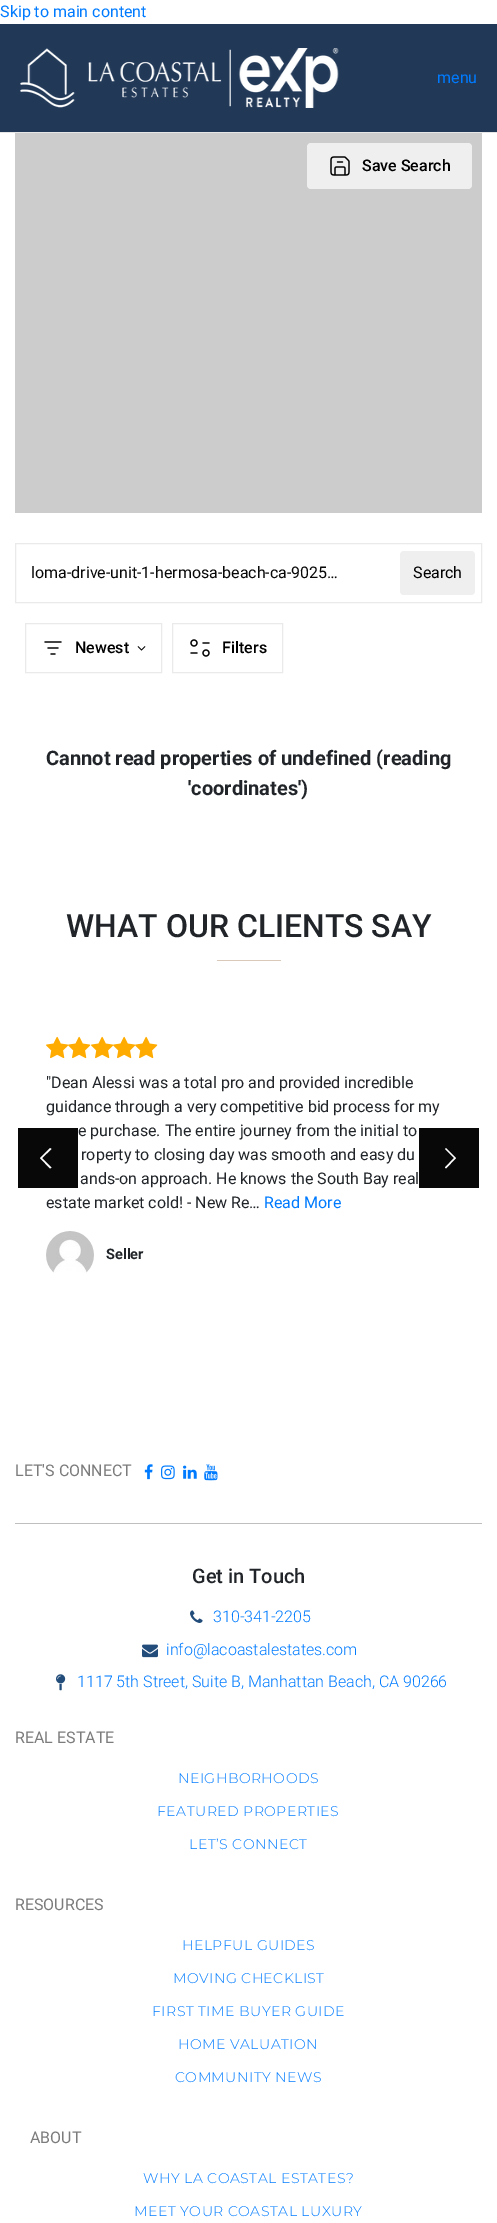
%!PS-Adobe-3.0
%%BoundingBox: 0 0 497 2223
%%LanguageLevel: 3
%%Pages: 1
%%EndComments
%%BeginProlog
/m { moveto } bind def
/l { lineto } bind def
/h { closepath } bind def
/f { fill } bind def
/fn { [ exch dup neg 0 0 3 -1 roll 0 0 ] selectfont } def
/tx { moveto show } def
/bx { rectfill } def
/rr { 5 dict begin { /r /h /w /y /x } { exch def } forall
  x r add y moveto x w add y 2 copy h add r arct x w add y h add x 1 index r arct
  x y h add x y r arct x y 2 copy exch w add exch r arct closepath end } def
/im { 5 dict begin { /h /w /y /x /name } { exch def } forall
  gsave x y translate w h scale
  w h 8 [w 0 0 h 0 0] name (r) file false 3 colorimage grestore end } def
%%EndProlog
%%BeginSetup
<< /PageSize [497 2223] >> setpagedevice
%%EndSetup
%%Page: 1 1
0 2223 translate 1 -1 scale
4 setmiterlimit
1 setgray
0 0 497 2223 bx
/Roboto-Regular 16 fn
0 0.482 1 setrgbcolor
(Skip to main content) 0 17 tx
0.902 setgray
0 132 497 1 bx
0.129 0.22 0.341 setrgbcolor
0 24 497 108 bx
(image0.raw) 20 48 319 60 im
0 0.482 1 setrgbcolor
(menu) 437 83 tx
0.8 setgray
15 133 467 380 bx
0.937 setgray
307 143 165 46 4 rr f
(image1.raw) 330 156 20 20 im
/Roboto-Medium 16 fn
0 setgray
(Save Search) 362 171 tx
0.918 setgray
15.5 543.5 466 59 rectstroke
/Roboto-Regular 16 fn
0.031 setgray
(loma-drive-unit-1-hermosa-beach-ca-9025…) 31 578 tx
0.937 setgray
400 551 75 44 4 rr f
0 setgray
(Search) 413 578 tx
0.918 setgray
25.5 623.5 136 49 rectstroke
(image2.raw) 44 641 18 14 im
/Roboto-Medium 16 fn
0 setgray
(Newest) 75 653 tx
(image3.raw) 137 646 9 5 im
0.918 setgray
172.5 623.5 110 49 rectstroke
(image4.raw) 190 639 20 18 im
0 setgray
(Filters) 222 653 tx
/Roboto-Bold 20 fn
0.129 0.145 0.161 setrgbcolor
(Cannot read properties of undefined \(reading) 46 765 tx
('coordinates'\)) 188 795 tx
/Roboto-Medium 32 fn
(WHAT OUR CLIENTS SAY) 66 937 tx
0.855 0.784 0.725 setrgbcolor
217 960 64 1 bx
(image5.raw) 46 1036 23 23 im
(image6.raw) 68 1036 23 23 im
(image5.raw) 91 1036 23 23 im
(image6.raw) 113 1036 23 23 im
(image6.raw) 135 1036 23 23 im
/Roboto-Regular 16 fn
0.129 0.145 0.161 setrgbcolor
("Dean Alessi was a total pro and provided incredible) 46 1088 tx
(guidance through a very competitive bid process for my) 46 1112 tx
(e purchase. The entire journey from the initial to) 78 1136 tx
(roperty to closing day was smooth and easy du) 81 1160 tx
(ands-on approach. He knows the South Bay real) 80 1184 tx
(estate market cold! - New Re…) 46 1208 tx
0 0.482 1 setrgbcolor
(Read More) 264 1208 tx
(image7.raw) 46 1231 48 42 im
/Roboto-Bold 14.5 fn
0.129 0.145 0.161 setrgbcolor
(Seller) 106 1259 tx
0.031 setgray
18 1128 60 60 bx
1 setgray
51.5 1149 m 50 1148 l 40 1158 l 50 1168.5 l 51.5 1167.5 l 42 1158 l h f
0.031 setgray
419 1128 60 60 bx
1 setgray
446 1148 m 445 1149 l 454 1158 l 445 1167.5 l 446 1168.5 l 456 1158 l h f
0.749 setgray
15 1523 467 1 bx
/Roboto-Regular 16 fn
0.486 setgray
(LET'S CONNECT) 15 1476 tx
(image8.raw) 144 1464 9 16 im
(image9.raw) 161 1465 14 15 im
(image10.raw) 183 1465 14 14 im
(image11.raw) 204 1464 14 17 im
/Roboto-Medium 20 fn
0.129 0.145 0.161 setrgbcolor
(Get in Touch) 192 1583 tx
(image12.raw) 190 1610 13 13 im
/Roboto-Light 16 fn
0 0.482 1 setrgbcolor
(310-341-2205) 213 1622 tx
(image13.raw) 142 1644 16 14 im
(info@lacoastalestates.com) 166 1655 tx
(image14.raw) 56 1674 10 17 im
(1117 5th Street, Suite B, Manhattan Beach, CA 90266) 77 1687 tx
/Roboto-Regular 16 fn
0.486 setgray
(REAL ESTATE) 15 1743 tx
/Montserrat-Light 14 fn
0 0.482 1 setrgbcolor
178 1783 m 0.5 0 (NEIGHBORHOODS) ashow
157 1816 m 0.5 0 (FEATURED PROPERTIES) ashow
189 1849 m 0.5 0 (LET’S CONNECT) ashow
/Roboto-Regular 16 fn
0.486 setgray
(RESOURCES) 15 1910 tx
/Montserrat-Light 14 fn
0 0.482 1 setrgbcolor
182 1950 m 0.5 0 (HELPFUL GUIDES) ashow
173 1983 m 0.5 0 (MOVING CHECKLIST) ashow
152 2016 m 0.5 0 (FIRST TIME BUYER GUIDE) ashow
178 2049 m 0.5 0 (HOME VALUATION) ashow
175 2082 m 0.5 0 (COMMUNITY NEWS) ashow
/Roboto-Regular 16 fn
0.486 setgray
(ABOUT) 30 2143 tx
/Montserrat-Light 14 fn
0 0.482 1 setrgbcolor
143 2183 m 0.5 0 (WHY LA COASTAL ESTATES?) ashow
134 2216 m 0.5 0 (MEET YOUR COASTAL LUXURY) ashow
showpage
%%EOF
